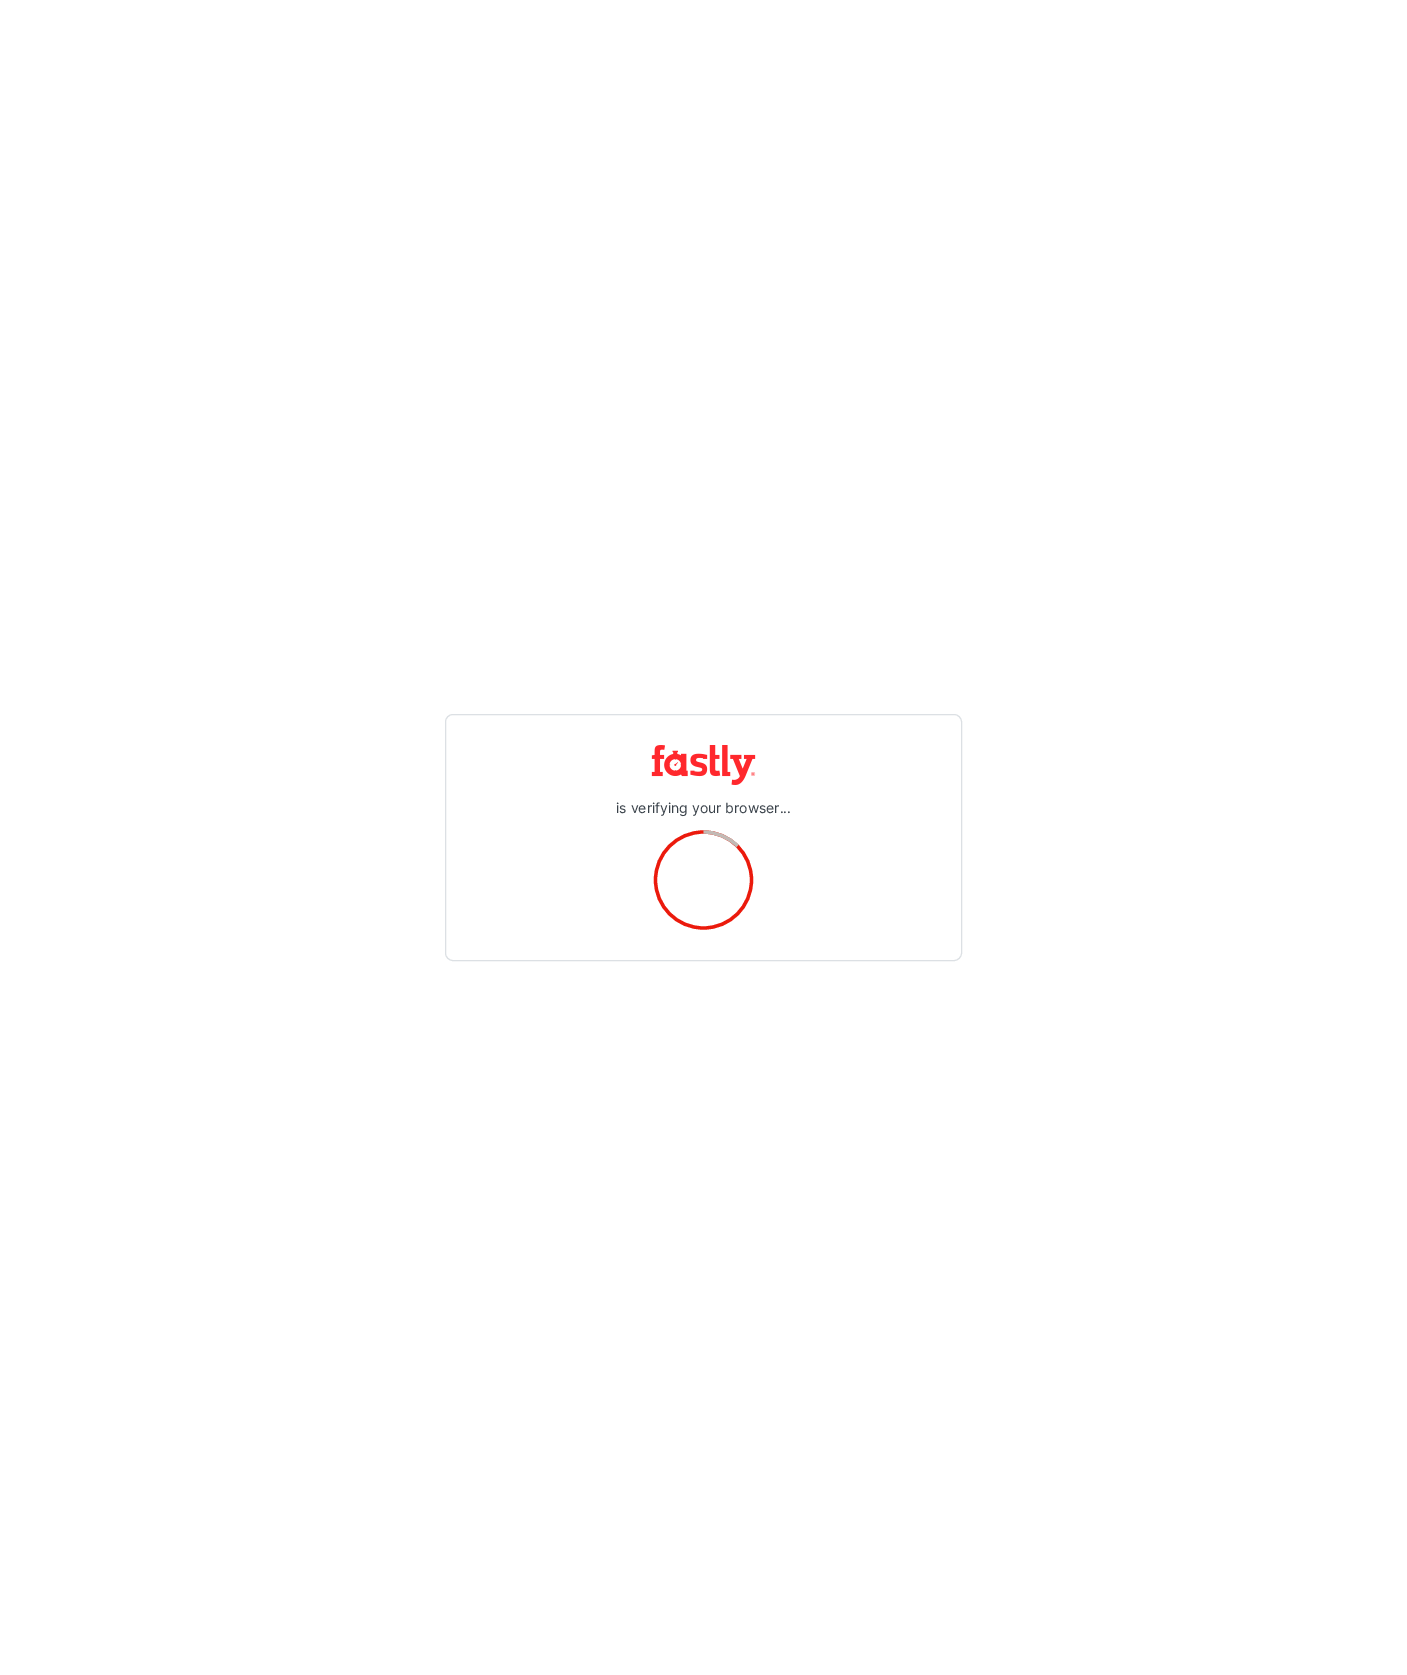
%!PS-Adobe-3.0
%%BoundingBox: 0 0 1407 1675
%%LanguageLevel: 3
%%Pages: 1
%%EndComments
%%BeginProlog
/m { moveto } bind def
/c { curveto } bind def
/h { closepath } bind def
/S { stroke } bind def
/w { setlinewidth } bind def
/fn { [ exch dup neg 0 0 3 -1 roll 0 0 ] selectfont } def
/tx { moveto show } def
/bx { rectfill } def
/rr { 5 dict begin { /r /h /w /y /x } { exch def } forall
  x r add y moveto x w add y 2 copy h add r arct x w add y h add x 1 index r arct
  x y h add x y r arct x y 2 copy exch w add exch r arct closepath end } def
/im { 5 dict begin { /h /w /y /x /name } { exch def } forall
  gsave x y translate w h scale
  w h 8 [w 0 0 h 0 0] name (r) file false 3 colorimage grestore end } def
%%EndProlog
%%BeginSetup
<< /PageSize [1407 1675] >> setpagedevice
%%EndSetup
%%Page: 1 1
0 1675 translate 1 -1 scale
4 setmiterlimit
1 setgray
0 0 1407 1675 bx
0.863 0.878 0.894 setrgbcolor
445.5 714.5 516 246 7.5 rr S
(image0.raw) 651 745 105 40 im
/Inter-Regular 14 fn
0.227 0.259 0.29 setrgbcolor
(is verifying your browser...) 616 813 tx
0.922 0.102 0.047 setrgbcolor
3.3 w
655.5 880 m 655.5 853.5 677 832 703.5 832 c 730 832 751.5 853.5 751.5 880 c 751.5 906.5 730 928 703.5 928 c 677 928 655.5 906.5 655.5 880 c h S
0.761 0.729 0.71 setrgbcolor
737.5 846 m 728.5 837 716 832 703.5 832 c S
showpage
%%EOF
